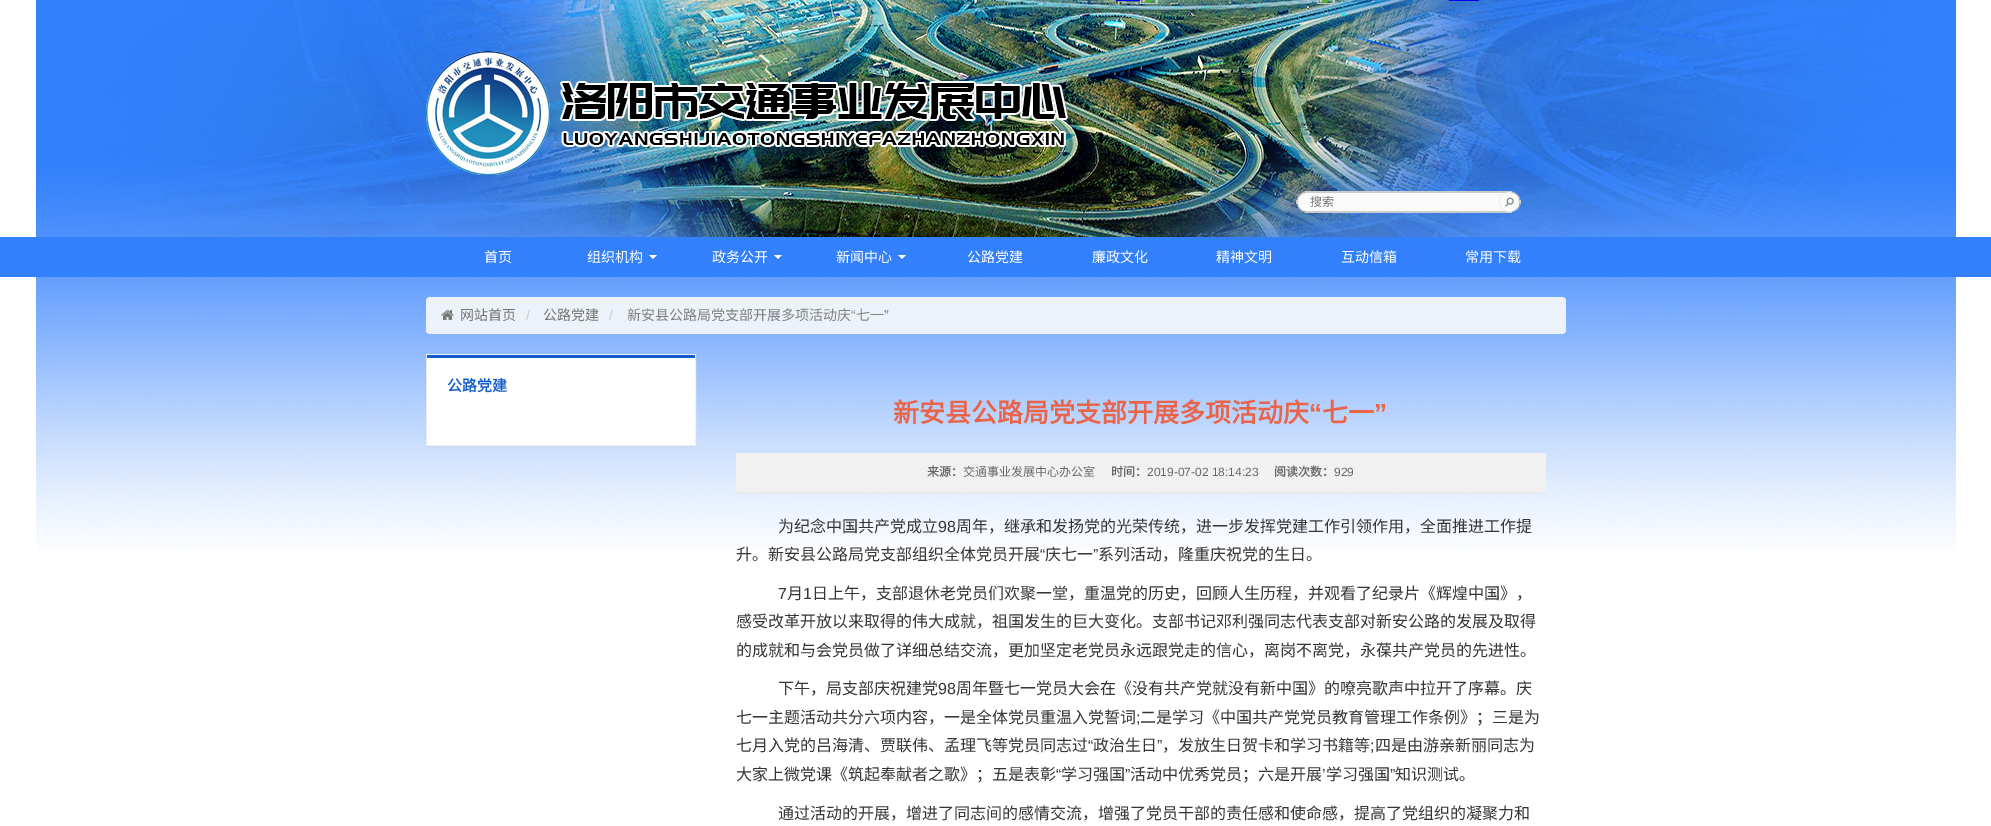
%!PS-Adobe-3.0
%%BoundingBox: 0 0 1991 826
%%LanguageLevel: 3
%%Pages: 1
%%EndComments
%%BeginProlog
/m { moveto } bind def
/l { lineto } bind def
/h { closepath } bind def
/f { fill } bind def
/fn { [ exch dup neg 0 0 3 -1 roll 0 0 ] selectfont } def
/tx { moveto show } def
/bx { rectfill } def
/al { dup .setfillconstantalpha .setstrokeconstantalpha } def
/rr { 5 dict begin { /r /h /w /y /x } { exch def } forall
  x r add y moveto x w add y 2 copy h add r arct x w add y h add x 1 index r arct
  x y h add x y r arct x y 2 copy exch w add exch r arct closepath end } def
/sh { 12 dict begin { /a /b /q /h /w /y /x } { exch def } forall gsave /was 0 def
  9 -2 -9 { dup b mul 4 div /e exch def 1 sub .425 mul 2.718 exch exp 1 add a .99 .min exch div /now exch def
    1 1 now sub 1 was sub div sub al /was now def
    w h .min e 2 mul add 0 gt { x e sub y e sub w e 2 mul add h e 2 mul add
      q e add b .6 mul add w h .min 2 div e add .min 0 .max rr fill } if } for grestore end } def
/im { 5 dict begin { /h /w /y /x /name } { exch def } forall
  gsave x y translate w h scale
  w h 8 [w 0 0 h 0 0] name (r) file false 3 colorimage grestore end } def
%%EndProlog
%%BeginSetup
<< /PageSize [1991 826] /PageUsesTransparency true >> setpagedevice
%%EndSetup
%%Page: 1 1
0 .pushpdf14devicefilter
0 826 translate 1 -1 scale
4 setmiterlimit
1 setgray
0 0 1991 826 bx
(image0.raw) 36 0 1920 550 im
(image1.raw) 1116 0 363 4 im
(image2.raw) 426 51 642 124 im
(image3.raw) 1296 191 225 22 im
/NotoSansCJKSC-Regular 12 fn
0.459 setgray
(搜索) 1310 206 tx
(image4.raw) 1499 192 20 20 im
0.196 0.502 0.988 setrgbcolor
0 237 1991 40 bx
/NotoSansCJKSC-Regular 14 fn
1 setgray
(首页) 484 262 tx
(组织机构) 587 262 tx
649 255 m 657 255 l 653 259 l h f
(政务公开) 712 262 tx
774 255 m 782 255 l 778 259 l h f
(新闻中心) 836 262 tx
898 255 m 906 255 l 902 259 l h f
(公路党建) 967 262 tx
(廉政文化) 1092 262 tx
(精神文明) 1216 262 tx
(互动信箱) 1341 262 tx
(常用下载) 1465 262 tx
0.922 0.949 0.976 setrgbcolor
426 297 1140 37 4 rr f
(image5.raw) 441 310 13 10 im
0.459 setgray
(网站首页) 460 320 tx
/LiberationSans-Regular 14 fn
0.8 setgray
(/) 526 320 tx
/NotoSansCJKSC-Regular 14 fn
0.459 setgray
(公路党建) 543 320 tx
/LiberationSans-Regular 14 fn
0.8 setgray
(/) 609 320 tx
/NotoSansCJKSC-Regular 14 fn
0.502 setgray
(新安县公路局党支部开展多项活动庆) 627 320 tx
/LiberationSans-Regular 14 fn
(“) 851 320 tx
/NotoSansCJKSC-Regular 14 fn
(七一) 856 320 tx
/LiberationSans-Regular 14 fn
(”) 884 320 tx
0 setgray
426 355 270 92 0 0.5 0.05 sh
1 setgray
427 358 268 87 bx
0.929 0.937 0.941 setrgbcolor
426.5 354.5 269 91 rectstroke
0.078 0.361 0.804 setrgbcolor
427 355 268 3 bx
/NotoSansCJKSC-Bold 15 fn
(公路党建) 447 391 tx
/NotoSansCJKSC-Bold 26 fn
0.918 0.392 0.29 setrgbcolor
(新安县公路局党支部开展多项活动庆) 893 422 tx
/LiberationSans-Bold 26 fn
(“) 1309 422 tx
/NotoSansCJKSC-Bold 26 fn
(七一) 1322 422 tx
/LiberationSans-Bold 26 fn
(”) 1374 422 tx
0.945 setgray
736 453 810 39 bx
0.914 setgray
736 492 810 1 bx
/NotoSansCJKSC-Bold 12 fn
0.408 setgray
(来源：) 927 476 tx
/NotoSansCJKSC-Regular 12 fn
(交通事业发展中心办公室) 963 476 tx
/NotoSansCJKSC-Bold 12 fn
(时间：) 1111 476 tx
/LiberationSans-Regular 12 fn
(2019-07-02 18:14:23) 1147 476 tx
/NotoSansCJKSC-Bold 12 fn
(阅读次数：) 1274 476 tx
/LiberationSans-Regular 12 fn
(929) 1334 476 tx
/NotoSansCJKSC-Regular 16 fn
0.208 setgray
(为纪念中国共产党成立) 778 532 tx
/LiberationSans-Regular 16 fn
(98) 938 532 tx
/NotoSansCJKSC-Regular 16 fn
(周年，继承和发扬党的光荣传统，进一步发挥党建工作引领作用，全面推进工作提) 956 532 tx
(升。新安县公路局党支部组织全体党员开展) 736 560 tx
/LiberationSans-Regular 16 fn
(“) 1040 560 tx
/NotoSansCJKSC-Regular 16 fn
(庆七一) 1045 560 tx
/LiberationSans-Regular 16 fn
(”) 1093 560 tx
/NotoSansCJKSC-Regular 16 fn
(系列活动，隆重庆祝党的生日。) 1098 560 tx
/LiberationSans-Regular 16 fn
(7) 778 599 tx
/NotoSansCJKSC-Regular 16 fn
(月) 787 599 tx
/LiberationSans-Regular 16 fn
(1) 803 599 tx
/NotoSansCJKSC-Regular 16 fn
(日上午，支部退休老党员们欢聚一堂，重温党的历史，回顾人生历程，并观看了纪录片《辉煌中国》，) 812 599 tx
(感受改革开放以来取得的伟大成就，祖国发生的巨大变化。支部书记邓利强同志代表支部对新安公路的发展及取得) 736 627 tx
(的成就和与会党员做了详细总结交流，更加坚定老党员永远跟党走的信心，离岗不离党，永葆共产党员的先进性。) 736 656 tx
(下午，局支部庆祝建党) 778 694 tx
/LiberationSans-Regular 16 fn
(98) 938 694 tx
/NotoSansCJKSC-Regular 16 fn
(周年暨七一党员大会在《没有共产党就没有新中国》的嘹亮歌声中拉开了序幕。庆) 956 694 tx
(七一主题活动共分六项内容，一是全体党员重温入党誓词) 736 723 tx
/LiberationSans-Regular 16 fn
(;) 1136 723 tx
/NotoSansCJKSC-Regular 16 fn
(二是学习《中国共产党党员教育管理工作条例》；三是为) 1140 723 tx
(七月入党的吕海清、贾联伟、孟理飞等党员同志过) 736 751 tx
/LiberationSans-Regular 16 fn
(“) 1088 751 tx
/NotoSansCJKSC-Regular 16 fn
(政治生日) 1093 751 tx
/LiberationSans-Regular 16 fn
(”) 1157 751 tx
/NotoSansCJKSC-Regular 16 fn
(，发放生日贺卡和学习书籍等) 1162 751 tx
/LiberationSans-Regular 16 fn
(;) 1370 751 tx
/NotoSansCJKSC-Regular 16 fn
(四是由游亲新丽同志为) 1375 751 tx
(大家上微党课《筑起奉献者之歌》；五是表彰) 736 780 tx
/LiberationSans-Regular 16 fn
(“) 1056 780 tx
/NotoSansCJKSC-Regular 16 fn
(学习强国) 1061 780 tx
/LiberationSans-Regular 16 fn
(”) 1125 780 tx
/NotoSansCJKSC-Regular 16 fn
(活动中优秀党员；六是开展 学习强国) 1130 780 tx
(知识测试。) 1395 780 tx
/LiberationSans-Regular 16 fn
(’) 1322 780 tx
(”) 1390 780 tx
/NotoSansCJKSC-Regular 16 fn
(通过活动的开展，增进了同志间的感情交流，增强了党员干部的责任感和使命感，提高了党组织的凝聚力和) 778 819 tx
.poppdf14devicefilter showpage
%%EOF
